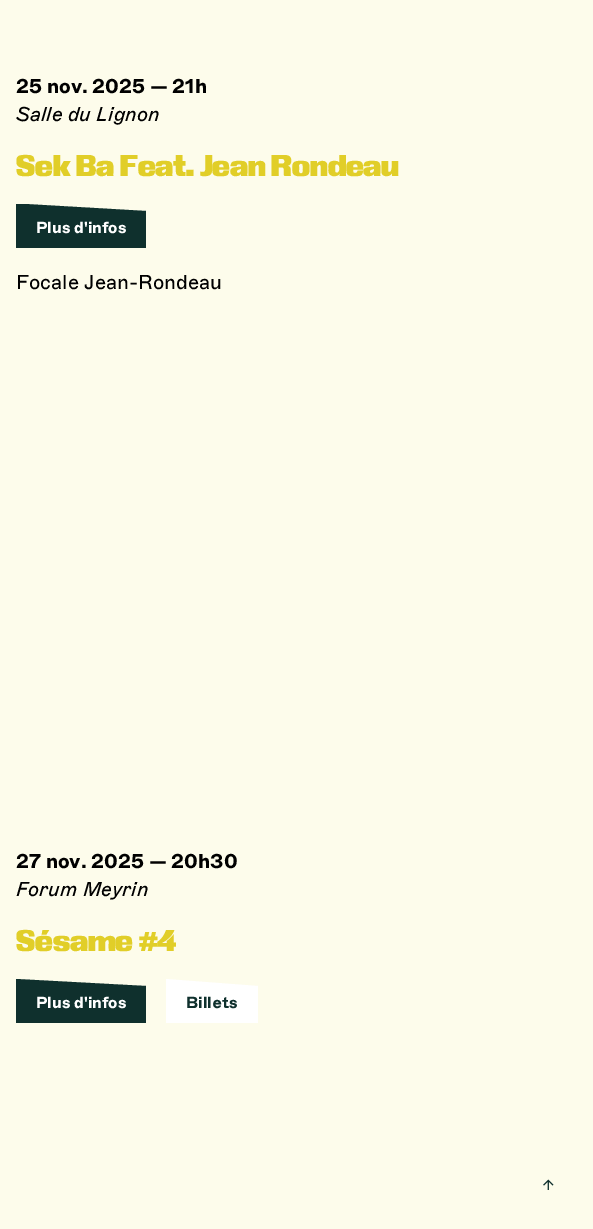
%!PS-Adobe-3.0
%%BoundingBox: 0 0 593 1229
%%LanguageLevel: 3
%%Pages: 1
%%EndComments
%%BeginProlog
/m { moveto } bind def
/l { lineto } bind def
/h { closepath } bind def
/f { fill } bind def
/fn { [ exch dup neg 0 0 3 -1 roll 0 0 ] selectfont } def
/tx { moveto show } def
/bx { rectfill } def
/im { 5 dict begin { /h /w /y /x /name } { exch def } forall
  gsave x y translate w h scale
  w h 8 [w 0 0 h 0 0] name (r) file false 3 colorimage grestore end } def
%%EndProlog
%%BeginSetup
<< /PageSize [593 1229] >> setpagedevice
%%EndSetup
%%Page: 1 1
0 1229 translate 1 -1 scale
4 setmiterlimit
0.992 0.988 0.922 setrgbcolor
0 0 593 1229 bx
/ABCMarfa-Bold 20 fn
0 setgray
(25 nov. 2025 — 21h) 16 93 tx
/ABCMarfa-Italic 20 fn
(Salle du Lignon) 16 121 tx
/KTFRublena-Black 30 fn
0.882 0.808 0.157 setrgbcolor
(Sek Ba Feat. Jean Rondeau) 16 176 tx
0.059 0.188 0.176 setrgbcolor
16 204 m 16 248 l 146 248 l 146 211 l 25 204 l h f
/ABCMarfa-Bold 16 fn
1 setgray
(Plus d'infos) 36 233 tx
/ABCMarfa-Regular 20 fn
0 setgray
(Focale Jean-Rondeau) 16 289 tx
/ABCMarfa-Bold 20 fn
(27 nov. 2025 — 20h30) 16 868 tx
/ABCMarfa-Italic 20 fn
(Forum Meyrin) 16 896 tx
/KTFRublena-Black 30 fn
0.882 0.808 0.157 setrgbcolor
(Sésame #4) 16 951 tx
0.059 0.188 0.176 setrgbcolor
16 979 m 16 1023 l 146 1023 l 146 986 l h f
/ABCMarfa-Bold 16 fn
1 setgray
(Plus d'infos) 36 1008 tx
166 979 m 258 986 l 258 1023 l 166 1023 l h f
0.059 0.188 0.176 setrgbcolor
(Billets) 186 1008 tx
(image0.raw) 543 1179 11 11 im
showpage
%%EOF
